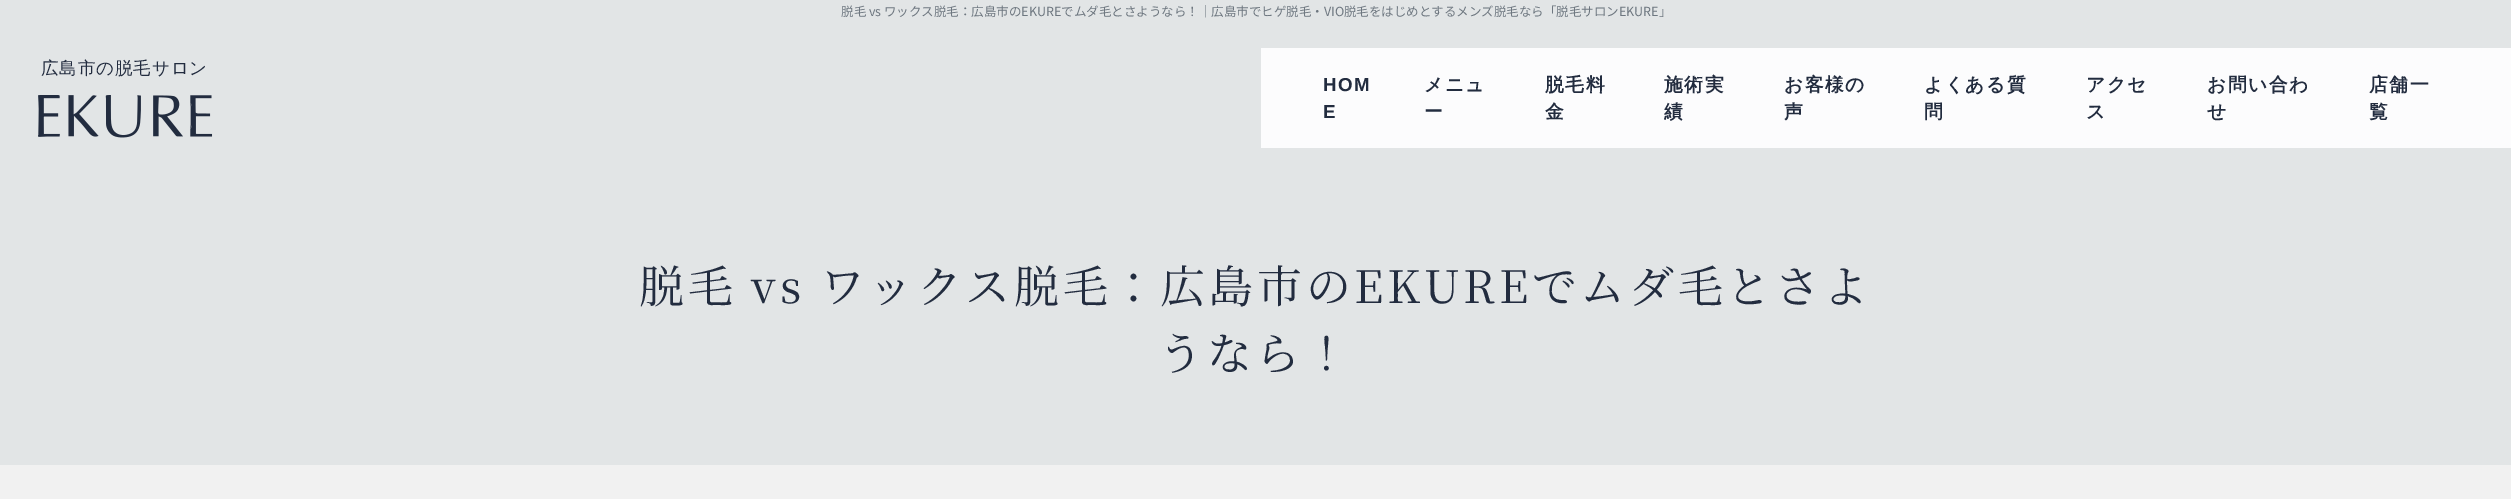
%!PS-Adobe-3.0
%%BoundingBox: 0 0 2511 499
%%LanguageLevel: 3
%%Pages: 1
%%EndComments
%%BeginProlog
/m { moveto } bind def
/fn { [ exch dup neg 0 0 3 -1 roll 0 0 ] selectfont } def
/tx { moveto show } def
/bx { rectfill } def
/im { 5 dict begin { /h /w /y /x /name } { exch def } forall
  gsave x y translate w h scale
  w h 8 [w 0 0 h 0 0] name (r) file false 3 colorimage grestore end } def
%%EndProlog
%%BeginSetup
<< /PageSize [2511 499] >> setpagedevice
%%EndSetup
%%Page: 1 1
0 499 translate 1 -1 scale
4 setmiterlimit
0.945 setgray
0 0 2511 499 bx
0.886 0.898 0.902 setrgbcolor
0 0 2511 23 bx
/NotoSansJP-Thin 12.5 fn
0.431 0.467 0.502 setrgbcolor
(脱毛 vs ワックス脱毛：広島市のEKUREでムダ毛とさようなら！｜広島市でヒゲ脱毛・VIO脱毛をはじめとするメンズ脱毛なら「脱毛サロンEKURE」) 841 16 tx
0.886 0.898 0.902 setrgbcolor
0 23 2511 442 bx
/WenQuanYiZenHei-Medium 17.5 fn
0.133 0.173 0.247 setrgbcolor
41 74 m 0.9 0 (広島市の脱毛サロン) ashow
(image0.raw) 38 95 175 43 im
0.988 0.988 0.992 setrgbcolor
1261 48 1250 100 bx
/LiberationSans-Bold 18.75 fn
0.133 0.173 0.247 setrgbcolor
1323 91 m 1.5 0 (HOM) ashow
1323 118 m 1.5 0 (E) ashow
/WenQuanYiZenHei-Bold 18.75 fn
1424 91 m 1.5 0 (メニュ) ashow
1424 118 m 1.5 0 (ー) ashow
1545 91 m 1.5 0 (脱毛料) ashow
1545 118 m 1.5 0 (金) ashow
1664 91 m 1.5 0 (施術実) ashow
1664 118 m 1.5 0 (績) ashow
1784 91 m 1.5 0 (お客様の) ashow
1784 118 m 1.5 0 (声) ashow
1924 91 m 1.5 0 (よくある質) ashow
1924 118 m 1.5 0 (問) ashow
2086 91 m 1.5 0 (アクセ) ashow
2086 118 m 1.5 0 (ス) ashow
2207 91 m 1.5 0 (お問い合わ) ashow
2207 118 m 1.5 0 (せ) ashow
2369 91 m 1.5 0 (店舗一) ashow
2369 118 m 1.5 0 (覧) ashow
/NotoSerifJP-ExtraLight 45 fn
639 303 m 3.6 0 (脱毛 vs ワックス脱毛：広島市のEKUREでムダ毛とさよ) ashow
1158 370 m 3.6 0 (うなら！) ashow
showpage
%%EOF
